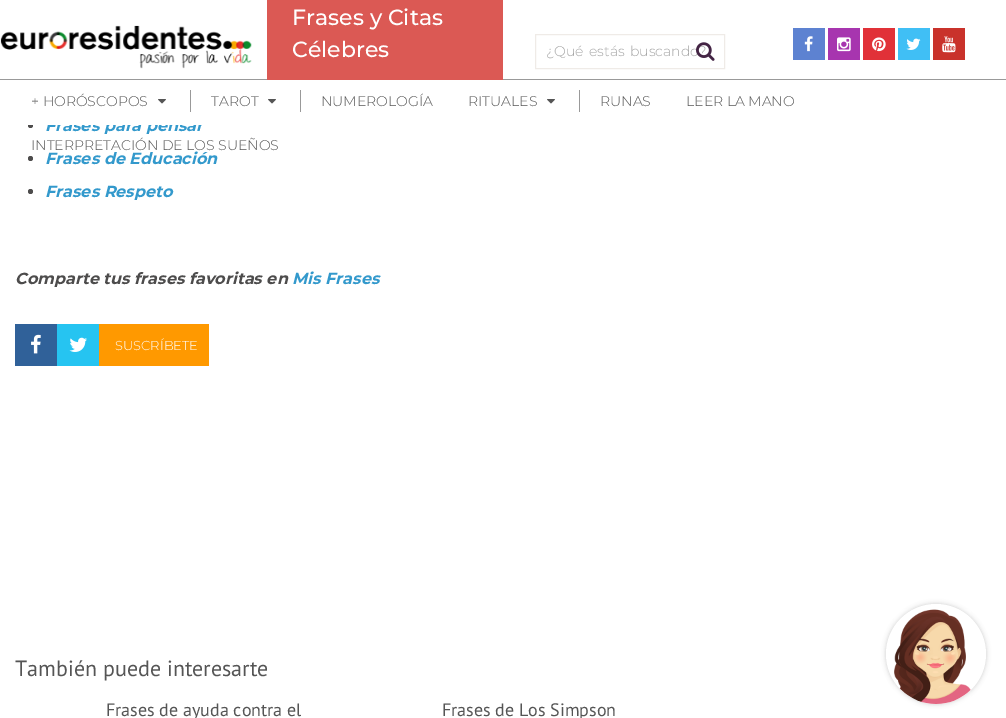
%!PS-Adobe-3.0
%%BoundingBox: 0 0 1006 718
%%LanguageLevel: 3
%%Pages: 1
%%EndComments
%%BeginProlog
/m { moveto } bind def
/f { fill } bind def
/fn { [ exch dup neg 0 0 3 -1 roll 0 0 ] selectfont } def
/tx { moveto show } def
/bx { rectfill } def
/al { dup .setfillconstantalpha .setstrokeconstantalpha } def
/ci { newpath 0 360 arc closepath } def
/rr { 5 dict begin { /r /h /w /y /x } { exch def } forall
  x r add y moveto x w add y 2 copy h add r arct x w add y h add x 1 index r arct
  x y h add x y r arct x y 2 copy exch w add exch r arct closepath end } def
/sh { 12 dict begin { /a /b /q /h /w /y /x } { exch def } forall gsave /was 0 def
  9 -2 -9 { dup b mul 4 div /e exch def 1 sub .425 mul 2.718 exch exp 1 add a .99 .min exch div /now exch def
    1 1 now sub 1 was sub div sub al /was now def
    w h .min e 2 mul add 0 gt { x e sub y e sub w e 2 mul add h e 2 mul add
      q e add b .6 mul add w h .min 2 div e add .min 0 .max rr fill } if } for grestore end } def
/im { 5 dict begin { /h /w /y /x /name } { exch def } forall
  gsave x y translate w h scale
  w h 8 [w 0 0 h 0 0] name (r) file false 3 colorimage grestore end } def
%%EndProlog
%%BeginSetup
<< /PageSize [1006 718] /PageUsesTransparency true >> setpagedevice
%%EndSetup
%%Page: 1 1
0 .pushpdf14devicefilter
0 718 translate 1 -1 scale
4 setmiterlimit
1 setgray
0 0 1006 718 bx
0.6 setgray
0 79 1006 1 bx
(image0.raw) 0 25 252 44 im
0.859 0.349 0.329 setrgbcolor
267 0 236 80 bx
/Montserrat-Medium 22 fn
1 setgray
(Frases y Citas) 292 25 tx
(Célebres) 292 57 tx
0.937 0.922 0.906 setrgbcolor
535.5 34.5 189 34 rectstroke
/Montserrat-Light 14 fn
0.643 setgray
546 56 m 2 0 32 (¿Qué estás buscando?) widthshow
(image1.raw) 696 42 19 19 im
0.365 0.51 0.82 setrgbcolor
793 28 32 32 bx
(image2.raw) 804 36 9 16 im
0.655 0.208 0.686 setrgbcolor
828 28 32 32 bx
(image3.raw) 837 37 14 15 im
0.882 0.192 0.22 setrgbcolor
863 28 32 32 bx
(image4.raw) 872 37 14 15 im
0.251 0.749 0.961 setrgbcolor
898 28 32 32 bx
(image5.raw) 906 38 15 12 im
0.788 0.196 0.169 setrgbcolor
933 28 32 32 bx
(image6.raw) 942 36 14 17 im
0.302 0.298 0.298 setrgbcolor
30.5 125.5 2.5 ci f
/Montserrat-BoldItalic 16 fn
0.2 0.6 0.8 setrgbcolor
(Frases para pensar) 45 131 tx
1 setgray
28 119 177 6 bx
/Montserrat-Light 14 fn
0.333 setgray
(+ HORÓSCOPOS) 31 106 tx
(image7.raw) 158 99 8 5 im
0.6 setgray
190 90 1 22 bx
0.333 setgray
(TAROT) 211 106 tx
(image7.raw) 268 99 8 5 im
0.6 setgray
300 90 1 22 bx
0.333 setgray
(NUMEROLOGÍA) 321 106 tx
(RITUALES) 468 106 tx
(image7.raw) 547 99 8 5 im
0.6 setgray
579 90 1 22 bx
0.333 setgray
(RUNAS) 600 106 tx
(LEER LA MANO) 686 106 tx
(INTERPRETACIÓN DE LOS SUEÑOS) 31 150 tx
0.302 0.298 0.298 setrgbcolor
30.5 158.5 2.5 ci f
/Montserrat-BoldItalic 16 fn
0.2 0.6 0.8 setrgbcolor
(Frases de Educación) 45 164 tx
0.302 0.298 0.298 setrgbcolor
30.5 191.5 2.5 ci f
0.2 0.6 0.8 setrgbcolor
(Frases Respeto) 45 197 tx
0.302 0.298 0.298 setrgbcolor
(Comparte tus frases favoritas en) 15 284 tx
0.2 0.6 0.8 setrgbcolor
(Mis Frases) 292 284 tx
0.188 0.38 0.6 setrgbcolor
15 324 42 42 bx
(image8.raw) 31 334 10 20 im
0.149 0.769 0.945 setrgbcolor
57 324 42 42 bx
(image9.raw) 69 337 18 15 im
1 0.6 0 setrgbcolor
99 324 110 42 bx
/Montserrat-Light 13 fn
1 setgray
(SUSCRÍBETE) 115 350 tx
/PTSans-Regular 22 fn
0.333 setgray
(También puede interesarte) 15 676 tx
/PTSans-Regular 18 fn
(Frases de ayuda contra el) 106 716 tx
(Frases de Los Simpson) 442 716 tx
0 setgray
886 604 100 100 50 2.5 0.2 sh
1 setgray
936 654 50 ci f
(image10.raw) 894 609 77 95 im
.poppdf14devicefilter showpage
%%EOF
